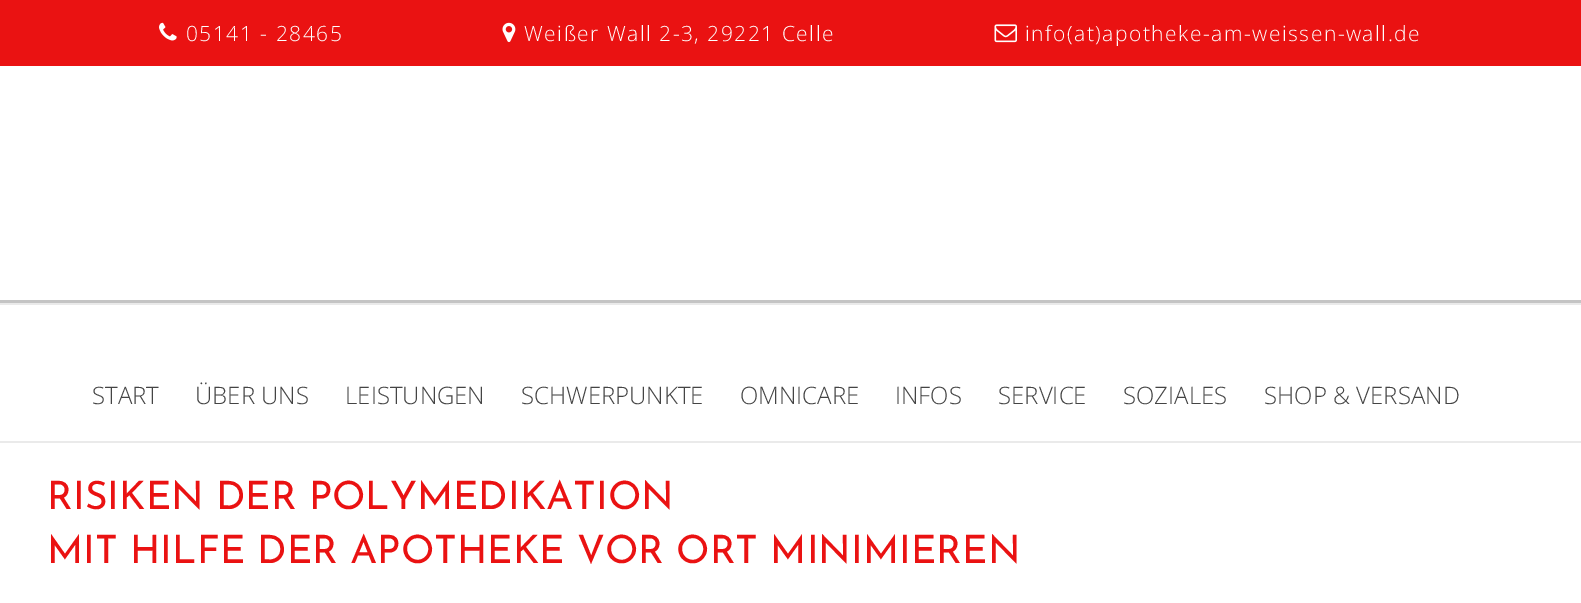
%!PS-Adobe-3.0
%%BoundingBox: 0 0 1581 603
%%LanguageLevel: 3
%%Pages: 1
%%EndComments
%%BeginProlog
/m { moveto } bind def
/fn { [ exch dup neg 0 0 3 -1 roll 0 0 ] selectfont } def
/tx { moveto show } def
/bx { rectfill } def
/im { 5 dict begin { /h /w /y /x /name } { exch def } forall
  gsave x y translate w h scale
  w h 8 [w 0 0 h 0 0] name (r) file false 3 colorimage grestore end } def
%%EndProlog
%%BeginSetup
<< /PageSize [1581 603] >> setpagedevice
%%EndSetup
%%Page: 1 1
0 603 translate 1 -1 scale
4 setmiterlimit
1 setgray
0 0 1581 603 bx
0.918 0.071 0.071 setrgbcolor
0 0 1581 66 bx
(image0.raw) 159 22 18 19 im
/OpenSans-Light 21 fn
1 setgray
186 41 m 1.5 0 (05141 - 28465) ashow
(image1.raw) 502 22 14 21 im
524 41 m 1.5 0 (Weißer Wall 2-3, 29221 Celle) ashow
(image2.raw) 994 24 23 19 im
1025 41 m 1.5 0 (info\(at\)apotheke-am-weissen-wall.de) ashow
0.769 setgray
0 300 1581 3 bx
0.918 setgray
0 303 1581 2 bx
0 441 1581 2 bx
/OpenSans-Light 24 fn
0.267 setgray
(START) 92 404 tx
(ÜBER UNS) 195 404 tx
(LEISTUNGEN) 345 404 tx
(SCHWERPUNKTE) 521 404 tx
(OMNICARE) 740 404 tx
(INFOS) 895 404 tx
(SERVICE) 998 404 tx
(SOZIALES) 1123 404 tx
(SHOP & VERSAND) 1264 404 tx
/JosefinSans-Thin 39 fn
0.918 0.071 0.071 setrgbcolor
(RISIKEN DER POLYMEDIKATION) 47 509 tx
(MIT HILFE DER APOTHEKE VOR ORT MINIMIEREN) 47 563 tx
showpage
%%EOF
